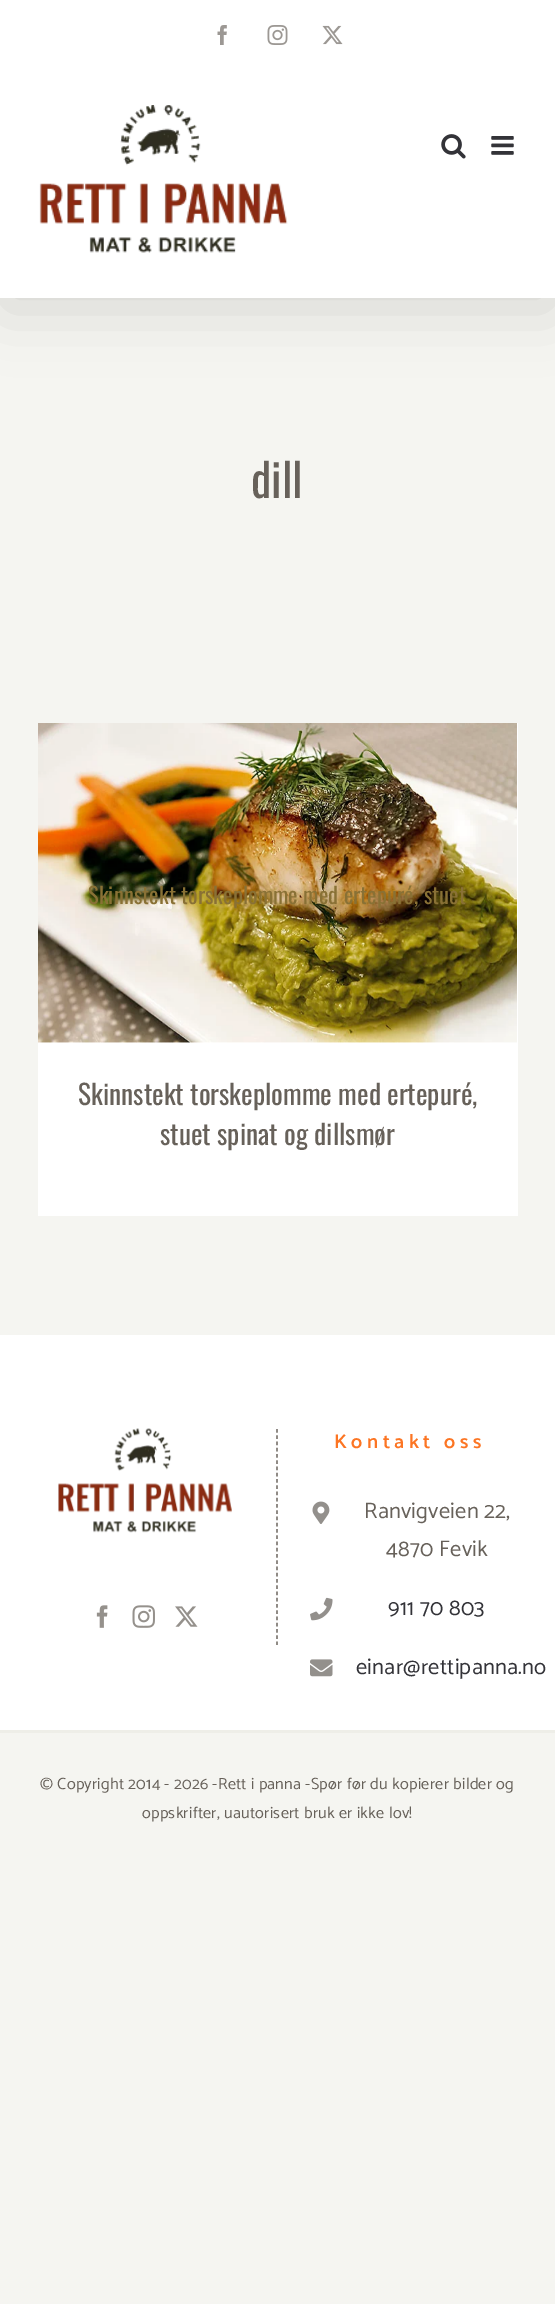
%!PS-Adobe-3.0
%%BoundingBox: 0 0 555 2304
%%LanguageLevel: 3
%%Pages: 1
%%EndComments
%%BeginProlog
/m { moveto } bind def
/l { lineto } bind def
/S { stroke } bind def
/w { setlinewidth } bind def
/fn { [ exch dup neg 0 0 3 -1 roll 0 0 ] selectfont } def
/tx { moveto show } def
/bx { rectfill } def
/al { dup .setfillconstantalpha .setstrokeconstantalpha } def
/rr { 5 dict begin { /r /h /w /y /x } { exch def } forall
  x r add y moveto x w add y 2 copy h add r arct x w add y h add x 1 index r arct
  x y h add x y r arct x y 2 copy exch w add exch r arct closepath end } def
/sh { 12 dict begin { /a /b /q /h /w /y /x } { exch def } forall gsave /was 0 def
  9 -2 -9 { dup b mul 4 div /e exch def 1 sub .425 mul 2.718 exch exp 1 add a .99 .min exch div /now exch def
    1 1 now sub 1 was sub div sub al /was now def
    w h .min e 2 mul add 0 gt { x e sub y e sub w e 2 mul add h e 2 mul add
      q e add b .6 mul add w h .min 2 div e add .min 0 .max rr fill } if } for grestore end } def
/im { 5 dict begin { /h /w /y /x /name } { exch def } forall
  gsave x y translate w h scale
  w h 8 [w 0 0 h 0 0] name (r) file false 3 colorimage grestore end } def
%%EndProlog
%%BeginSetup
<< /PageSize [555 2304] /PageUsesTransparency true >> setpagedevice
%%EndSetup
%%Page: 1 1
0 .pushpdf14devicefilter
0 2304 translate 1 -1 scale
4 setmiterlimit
0.961 0.961 0.945 setrgbcolor
0 0 555 2304 bx
0 setgray
3 15 550 293 0 31 0.14 sh
1 setgray
0 0 555 298 bx
(image0.raw) 217 25 10 20 im
(image1.raw) 267 25 21 20 im
(image2.raw) 322 25 21 20 im
(image3.raw) 39 105 249 148 im
(image4.raw) 441 134 25 25 im
(image5.raw) 491 136 23 19 im
/Oswald-Regular 46 fn
0.404 0.38 0.353 setrgbcolor
(dill) 251 498 tx
1 setgray
38 723 480 493 bx
(image6.raw) 38 723 479 320 im
/Oswald-Regular 22.5 fn
0.537 0.443 0.208 setrgbcolor
88 904 m 0.1 0 (Skinnstekt torskeplomme med ertepuré, stuet) ashow
/Oswald-Regular 27.5 fn
0.404 0.38 0.353 setrgbcolor
(Skinnstekt torskeplomme med ertepuré,) 78 1105 tx
(stuet spinat og dillsmør) 160 1145 tx
1 setgray
0 1335 555 395 bx
0.404 0.38 0.353 setrgbcolor
1.2 w
[3.75 2.5] 0 setdash
277 1429 m 277 1645 l S
(image7.raw) 58 1428 174 105 im
(image8.raw) 96 1605 12 23 im
(image9.raw) 132 1605 23 23 im
(image10.raw) 175 1606 23 21 im
/Catamaran-SemiBold 20 fn
0.988 0.459 0.137 setrgbcolor
334 1448 m 4.5 0 (Kontakt oss) ashow
(image11.raw) 312 1501 18 23 im
/Catamaran-Regular 22.5 fn
0.404 0.38 0.353 setrgbcolor
364 1518 m 0.25 0 (Ranvigveien 22,) ashow
386 1556 m 0.25 0 (4870 Fevik) ashow
(image12.raw) 310 1597 23 24 im
0.2 0.2 0.22 setrgbcolor
388 1615 m 0.25 0 (911 70 803) ashow
(image13.raw) 310 1659 23 18 im
356 1674 m 0.25 0 (einar@rettipanna.no) ashow
0.933 0.933 0.91 setrgbcolor
0 1730 555 3 bx
/Catamaran-Regular 16.25 fn
0.404 0.38 0.353 setrgbcolor
40 1789 m 0.25 0 (© Copyright 2014 - 2026 -Rett i panna -Spør før du kopierer bilder og) ashow
142 1818 m 0.25 0 (oppskrifter, uautorisert bruk er ikke lov!) ashow
.poppdf14devicefilter showpage
%%EOF
